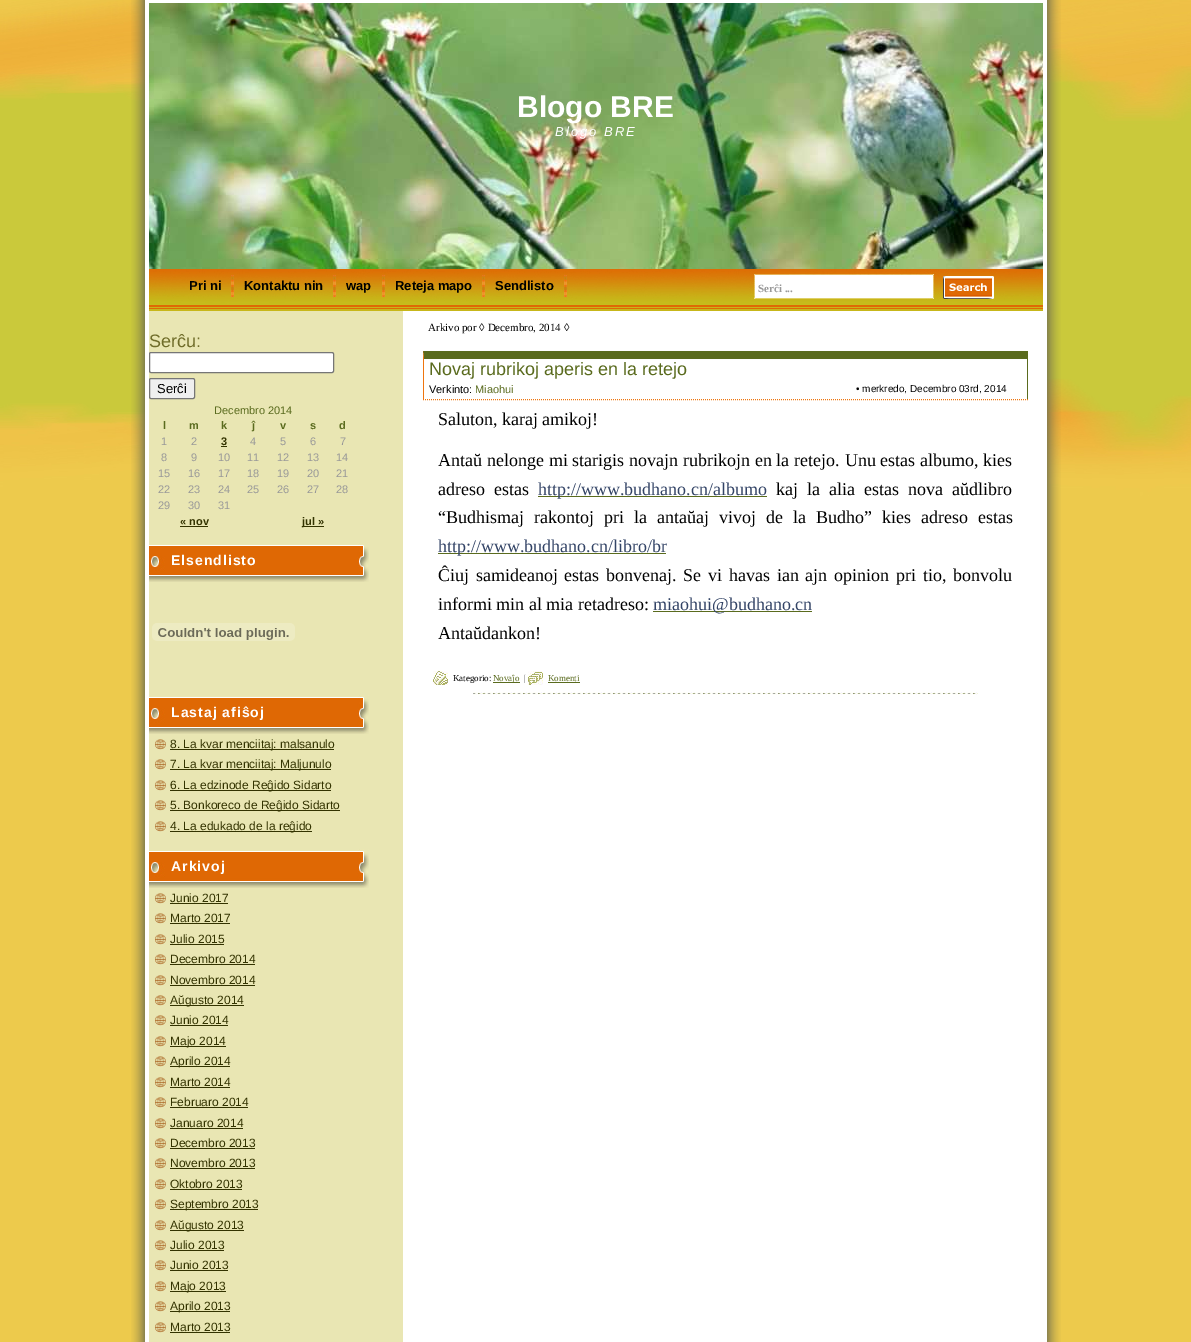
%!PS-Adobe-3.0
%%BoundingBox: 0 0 1191 1342
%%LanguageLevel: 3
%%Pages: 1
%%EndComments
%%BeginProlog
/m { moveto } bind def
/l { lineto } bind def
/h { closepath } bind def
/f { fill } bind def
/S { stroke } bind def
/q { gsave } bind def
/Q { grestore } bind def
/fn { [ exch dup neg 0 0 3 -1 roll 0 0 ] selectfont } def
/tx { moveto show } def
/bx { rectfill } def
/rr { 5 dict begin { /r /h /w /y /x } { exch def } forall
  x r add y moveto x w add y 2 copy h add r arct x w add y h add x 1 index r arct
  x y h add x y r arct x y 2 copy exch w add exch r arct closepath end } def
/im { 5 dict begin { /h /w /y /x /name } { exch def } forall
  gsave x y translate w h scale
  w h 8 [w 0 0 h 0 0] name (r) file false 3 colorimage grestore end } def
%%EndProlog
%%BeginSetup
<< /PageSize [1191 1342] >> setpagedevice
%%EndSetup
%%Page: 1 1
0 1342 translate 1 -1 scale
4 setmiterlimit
0.929 0.792 0.298 setrgbcolor
0 0 1191 1342 bx
(image0.raw) 0 0 1191 500 im
(image1.raw) 131 0 930 1342 im
(image2.raw) 149 3 894 266 im
/LiberationSans-Bold 30 fn
1 setgray
(Blogo BRE) 517 117 tx
/LiberationSans-Italic 13 fn
555 136 m 2 0 (Blogo BRE) ashow
(image3.raw) 149 269 894 42 im
/LiberationSans-Bold 13 fn
0 setgray
(Pri ni) 189 290 tx
(image4.raw) 231 275 3 22 im
(Kontaktu nin) 244 290 tx
(image4.raw) 333 275 3 22 im
(wap) 346 290 tx
(image4.raw) 382 275 3 22 im
(Reteja mapo) 395 290 tx
(image4.raw) 482 275 3 22 im
(Sendlisto) 495 290 tx
(image4.raw) 564 275 3 22 im
1 setgray
755 275 178 23 bx
/LiberationSerif-Bold 11 fn
0.6 setgray
(Serĉi ...) 758 292 tx
0.914 0.902 0.702 setrgbcolor
149 311 254 1031 bx
/LiberationSans-Regular 18 fn
0.439 0.427 0.165 setrgbcolor
(Serĉu:) 149 347 tx
1 setgray
149.5 352.5 184 20 1.5 rr q f Q
0.463 setgray
S
0.937 setgray
149.5 378.5 45 20 1.5 rr q f Q
0.463 setgray
S
/LiberationSans-Regular 13 fn
0 setgray
(Serĉi) 157 393 tx
/LiberationSans-Regular 11 fn
0.353 0.42 0.118 setrgbcolor
(Decembro 2014) 214 414 tx
/LiberationSans-Bold 11 fn
(l) 163 429 tx
(m) 189 429 tx
(k) 221 429 tx
(ĵ) 252 429 tx
(v) 280 429 tx
(s) 310 429 tx
(d) 339 429 tx
/LiberationSans-Regular 11 fn
0.6 setgray
(1) 161 445 tx
(2) 191 445 tx
/LiberationSans-Bold 11 fn
0.2 0.2 0 setrgbcolor
(3) 221 445 tx
221 446 6 1 bx
/LiberationSans-Regular 11 fn
0.6 setgray
(4) 250 445 tx
(5) 280 445 tx
(6) 310 445 tx
(7) 340 445 tx
(8) 161 461 tx
(9) 191 461 tx
(10) 218 461 tx
(11) 247 461 tx
(12) 277 461 tx
(13) 307 461 tx
(14) 336 461 tx
(15) 158 477 tx
(16) 188 477 tx
(17) 218 477 tx
(18) 247 477 tx
(19) 277 477 tx
(20) 307 477 tx
(21) 336 477 tx
(22) 158 493 tx
(23) 188 493 tx
(24) 218 493 tx
(25) 247 493 tx
(26) 277 493 tx
(27) 307 493 tx
(28) 336 493 tx
(29) 158 509 tx
(30) 188 509 tx
(31) 218 509 tx
/LiberationSans-Bold 11 fn
0.2 0.2 0 setrgbcolor
(« nov) 180 525 tx
180 526 28 1 bx
302 526 22 1 bx
(jul ») 302 525 tx
(image5.raw) 149 543 220 39 im
/LiberationSans-Bold 14 fn
1 setgray
171 565 m 1 0 (Elsendlisto) ashow
(image6.raw) 152 623 143 18 im
(image5.raw) 149 695 220 39 im
171 717 m 1 0 (Lastaj afiŝoj) ashow
(image7.raw) 155 739 11 11 im
0.2 0.2 0 setrgbcolor
170 749 164 1 bx
/LiberationSans-Regular 12 fn
(8. La kvar menciitaj: malsanulo) 170 748 tx
(image7.raw) 155 759 11 11 im
170 769 161 1 bx
(7. La kvar menciitaj: Maljunulo) 170 768 tx
(image7.raw) 155 780 11 11 im
170 790 161 1 bx
(6. La edzinode Reĝido Sidarto) 170 789 tx
(image7.raw) 155 800 11 11 im
170 810 170 1 bx
(5. Bonkoreco de Reĝido Sidarto) 170 809 tx
(image7.raw) 155 821 11 11 im
170 831 142 1 bx
(4. La edukado de la reĝido) 170 830 tx
(image5.raw) 149 849 220 39 im
/LiberationSans-Bold 14 fn
1 setgray
171 871 m 1 0 (Arkivoj) ashow
(image7.raw) 155 893 11 11 im
/LiberationSans-Regular 12 fn
0.2 0.2 0 setrgbcolor
(Junio 2017) 170 902 tx
170 903 58 1 bx
(image7.raw) 155 913 11 11 im
(Marto 2017) 170 922 tx
170 923 60 1 bx
(image7.raw) 155 934 11 11 im
(Julio 2015) 170 943 tx
170 944 54 1 bx
(image7.raw) 155 954 11 11 im
(Decembro 2014) 170 963 tx
170 964 85 1 bx
(image7.raw) 155 975 11 11 im
(Novembro 2014) 170 984 tx
170 985 85 1 bx
(image7.raw) 155 995 11 11 im
170 1005 74 1 bx
(Aŭgusto 2014) 170 1004 tx
(image7.raw) 155 1015 11 11 im
(Junio 2014) 170 1024 tx
170 1025 58 1 bx
(image7.raw) 155 1036 11 11 im
170 1046 56 1 bx
(Majo 2014) 170 1045 tx
(image7.raw) 155 1056 11 11 im
170 1066 60 1 bx
(Aprilo 2014) 170 1065 tx
(image7.raw) 155 1077 11 11 im
(Marto 2014) 170 1086 tx
170 1087 60 1 bx
(image7.raw) 155 1097 11 11 im
(Februaro 2014) 170 1106 tx
170 1107 78 1 bx
(image7.raw) 155 1118 11 11 im
(Januaro 2014) 170 1127 tx
170 1128 73 1 bx
(image7.raw) 155 1138 11 11 im
(Decembro 2013) 170 1147 tx
170 1148 85 1 bx
(image7.raw) 155 1158 11 11 im
(Novembro 2013) 170 1167 tx
170 1168 85 1 bx
(image7.raw) 155 1179 11 11 im
(Oktobro 2013) 170 1188 tx
170 1189 72 1 bx
(image7.raw) 155 1199 11 11 im
170 1209 88 1 bx
(Septembro 2013) 170 1208 tx
(image7.raw) 155 1220 11 11 im
170 1230 74 1 bx
(Aŭgusto 2013) 170 1229 tx
(image7.raw) 155 1240 11 11 im
(Julio 2013) 170 1249 tx
170 1250 54 1 bx
(image7.raw) 155 1260 11 11 im
(Junio 2013) 170 1269 tx
170 1270 58 1 bx
(image7.raw) 155 1281 11 11 im
170 1291 56 1 bx
(Majo 2013) 170 1290 tx
(image7.raw) 155 1301 11 11 im
170 1311 60 1 bx
(Aprilo 2013) 170 1310 tx
(image7.raw) 155 1322 11 11 im
(Marto 2013) 170 1331 tx
170 1332 60 1 bx
/LiberationSerif-Regular 11 fn
0 setgray
(Arkivo por ◊ Decembro, 2014 ◊) 428 331 tx
0.353 0.42 0.118 setrgbcolor
423 351 m 1028 351 l 1027 359 l 424 359 l h f
1027 351 1 49 bx
0.937 0.459 0.055 setrgbcolor
[1 1] 0 setdash
423 399.5 m 1028 399.5 l S
423 400 m 423 351 l 424 359 l 424 399 l h f
/LiberationSans-Regular 18 fn
0.353 0.42 0.118 setrgbcolor
(Novaj rubrikoj aperis en la retejo) 429 375 tx
/LiberationSans-Regular 11 fn
0 setgray
(Verkinto:) 429 393 tx
0.353 0.42 0.118 setrgbcolor
(Miaohui) 475 393 tx
/LiberationSans-Regular 10 fn
0 setgray
(• merkredo, Decembro 03rd, 2014) 856 392 tx
/LiberationSerif-Regular 18 fn
(Saluton, karaj amikoj!) 438 425 tx
438 466 m 0.3 0 32 (Antaŭ nelonge mi starigis novajn rubrikojn en la retejo. Unu estas albumo, kies) widthshow
438 495 m 4.5 0 32 (adreso estas) widthshow
0.353 0.42 0.118 setrgbcolor
538 496 229 1 bx
0.2 0.267 0.4 setrgbcolor
(http://www.budhano.cn/albumo) 538 495 tx
0 setgray
776 495 m 4.5 0 32 (kaj la alia estas nova aŭdlibro) widthshow
438 523 m 5.5 0 32 (“Budhismaj rakontoj pri la antaŭaj vivoj de la Budho” kies adreso estas) widthshow
0.353 0.42 0.118 setrgbcolor
438 553 228 1 bx
0.2 0.267 0.4 setrgbcolor
(http://www.budhano.cn/libro/br) 438 552 tx
0 setgray
438 581 m 2.25 0 32 (Ĉiuj samideanoj estas bonvenaj. Se vi havas ian ajn opinion pri tio, bonvolu) widthshow
(informi min al mia retadreso:) 438 610 tx
0.353 0.42 0.118 setrgbcolor
653 611 159 1 bx
0.2 0.267 0.4 setrgbcolor
(miaohui@budhano.cn) 653 610 tx
0 setgray
(Antaŭdankon!) 438 639 tx
(image8.raw) 433 671 15 14 im
/LiberationSerif-Regular 9 fn
(Kategorio:) 453 681 tx
0.353 0.42 0.118 setrgbcolor
493 682 27 1 bx
(Novaĵo) 493 681 tx
0 setgray
(|) 524 681 tx
(image9.raw) 528 671 15 14 im
0.353 0.42 0.118 setrgbcolor
(Komenti) 548 681 tx
548 682 32 1 bx
(image10.raw) 473 692 505 3 im
showpage
%%EOF
